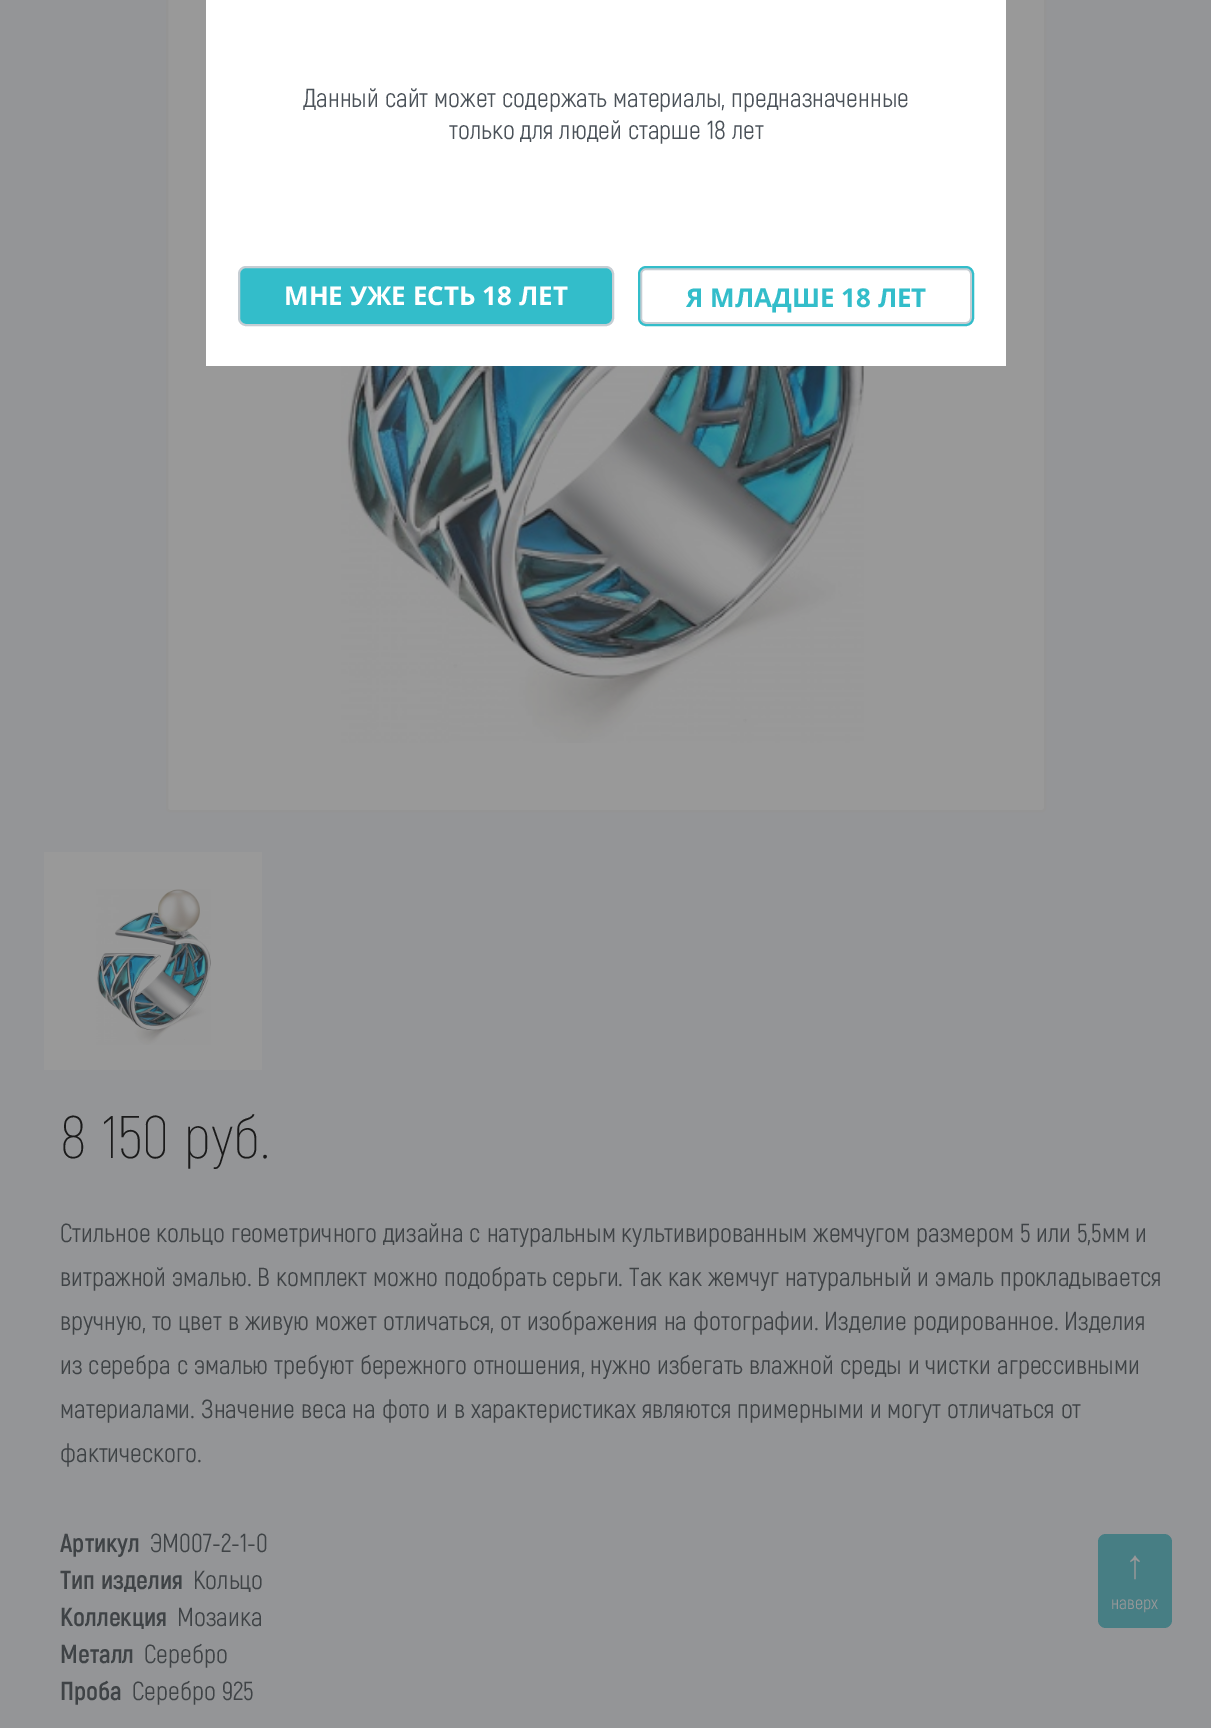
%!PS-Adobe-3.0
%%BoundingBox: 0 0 1211 1728
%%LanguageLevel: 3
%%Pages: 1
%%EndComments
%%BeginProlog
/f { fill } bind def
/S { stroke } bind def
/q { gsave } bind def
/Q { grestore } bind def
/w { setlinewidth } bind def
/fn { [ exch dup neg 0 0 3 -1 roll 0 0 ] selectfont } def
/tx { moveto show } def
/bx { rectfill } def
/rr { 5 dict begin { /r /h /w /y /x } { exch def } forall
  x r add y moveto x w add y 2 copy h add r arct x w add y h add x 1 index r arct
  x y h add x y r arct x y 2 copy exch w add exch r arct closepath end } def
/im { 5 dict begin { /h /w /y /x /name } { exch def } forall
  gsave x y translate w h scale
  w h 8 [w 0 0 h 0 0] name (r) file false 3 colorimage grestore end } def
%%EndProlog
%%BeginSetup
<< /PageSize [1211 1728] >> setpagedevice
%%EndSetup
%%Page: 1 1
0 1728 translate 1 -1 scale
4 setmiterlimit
0.58 0.584 0.592 setrgbcolor
0 0 1211 1728 bx
0.6 setgray
167 -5 878 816 3 rr q f Q
0.58 setgray
2 w
S
1 setgray
206 0 800 366 bx
/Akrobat-Regular 26 fn
0.294 0.322 0.349 setrgbcolor
(Данный сайт может содержать материалы, предназначенные) 303 107 tx
(только для людей старше 18 лет) 449 139 tx
0.2 0.741 0.792 setrgbcolor
239 267 374 58 7 rr q f Q
0.776 0.804 0.827 setrgbcolor
S
/OpenSans-Bold 26 fn
1 setgray
(МНЕ УЖЕ ЕСТЬ 18 ЛЕТ) 284 305 tx
0.776 0.804 0.827 setrgbcolor
641 269 330 54 5 rr S
0.2 0.741 0.792 setrgbcolor
639 267 334 58 7 rr S
(Я МЛАДШЕ 18 ЛЕТ) 686 307 tx
(image0.raw) 341 366 523 377 im
0.6 setgray
44 852 218 218 bx
(image1.raw) 96 889 115 156 im
/Akrobat-ExtraLight 60 fn
0.102 setgray
(8 150 руб.) 60 1158 tx
/Akrobat-Regular 26 fn
0.247 0.263 0.275 setrgbcolor
(Стильное кольцо геометричного дизайна с натуральным культивированным жемчугом размером 5 или 5,5мм и) 60 1242 tx
(витражной эмалью. В комплект можно подобрать серьги. Так как жемчуг натуральный и эмаль прокладывается) 60 1286 tx
(вручную, то цвет в живую может отличаться, от изображения на фотографии. Изделие родированное. Изделия) 60 1330 tx
(из серебра с эмалью требуют бережного отношения, нужно избегать влажной среды и чистки агрессивными) 60 1374 tx
(материалами. Значение веса на фото и в характеристиках являются примерными и могут отличаться от) 60 1418 tx
(фактического.) 60 1462 tx
/Akrobat-Bold 26 fn
(Артикул) 60 1552 tx
/Akrobat-Regular 26 fn
(ЭМ007-2-1-0) 150 1552 tx
/Akrobat-Bold 26 fn
(Тип изделия) 60 1589 tx
/Akrobat-Regular 26 fn
(Кольцо) 193 1589 tx
/Akrobat-Bold 26 fn
(Коллекция) 60 1626 tx
/Akrobat-Regular 26 fn
(Мозаика) 177 1626 tx
/Akrobat-Bold 26 fn
(Металл) 60 1663 tx
/Akrobat-Regular 26 fn
(Серебро) 144 1663 tx
/Akrobat-Bold 26 fn
(Проба) 60 1700 tx
/Akrobat-Regular 26 fn
(Серебро 925) 132 1700 tx
0.278 0.494 0.518 setrgbcolor
1098 1534 74 94 8 rr f
/LiberationSans-Regular 40 fn
0.596 0.596 0.6 setrgbcolor
(↑) 1125 1578 tx
/Akrobat-Regular 18 fn
(наверх) 1111 1609 tx
showpage
%%EOF
